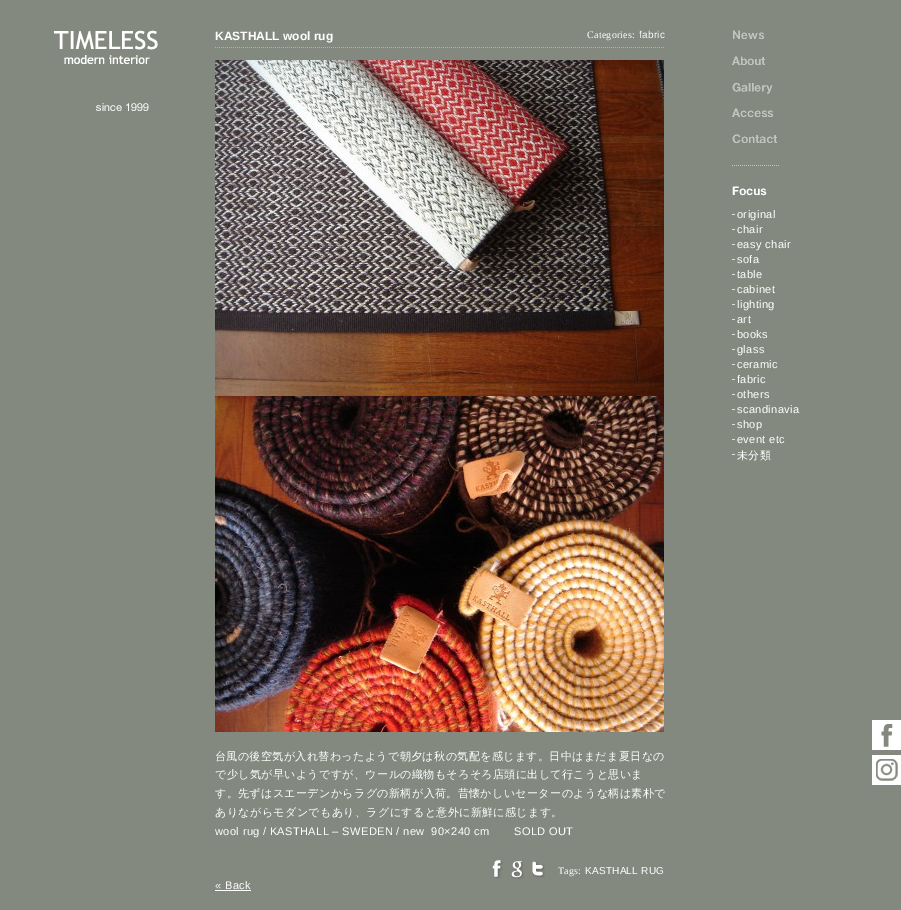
%!PS-Adobe-3.0
%%BoundingBox: 0 0 901 910
%%LanguageLevel: 3
%%Pages: 1
%%EndComments
%%BeginProlog
/m { moveto } bind def
/fn { [ exch dup neg 0 0 3 -1 roll 0 0 ] selectfont } def
/tx { moveto show } def
/bx { rectfill } def
/im { 5 dict begin { /h /w /y /x /name } { exch def } forall
  gsave x y translate w h scale
  w h 8 [w 0 0 h 0 0] name (r) file false 3 colorimage grestore end } def
%%EndProlog
%%BeginSetup
<< /PageSize [901 910] >> setpagedevice
%%EndSetup
%%Page: 1 1
0 910 translate 1 -1 scale
4 setmiterlimit
0.518 0.537 0.498 setrgbcolor
0 0 901 910 bx
(image0.raw) 54 30 104 34 im
(image1.raw) 96 103 53 8 im
(image2.raw) 215 47 449 1 im
/LiberationSans-Bold 12 fn
1 setgray
(KASTHALL wool rug) 215 40 tx
/LiberationSerif-Regular 10 fn
587 38 m 0.25 0 (Categories:) ashow
/LiberationSans-Regular 10 fn
639 38 m 0.25 0 (fabric) ashow
(image3.raw) 215 60 449 336 im
(image4.raw) 215 396 449 336 im
/WenQuanYiZenHei-Medium 11.05 fn
215 760 m 0.35 0 (台風の後空気が入れ替わったようで朝夕は秋の気配を感じます。日中はまだま夏日なの) ashow
215 778 m 0.35 0 (で少し気が早いようですが、ウールの織物もそろそろ店頭に出して行こうと思いま) ashow
215 797 m 0.35 0 (す。先ずはスエーデンからラグの新柄が入荷。昔懐かしいセーターのような柄は素朴で) ashow
215 816 m 0.35 0 (ありながらモダンでもあり、ラグにすると意外に新鮮に感じます。) ashow
/LiberationSans-Regular 11.05 fn
215 835 m 0.35 0 (wool rug / KASTHALL – SWEDEN / new  90×240 cm) ashow
514 835 m 0.35 0 (SOLD OUT) ashow
(image5.raw) 492 860 11 19 im
(image6.raw) 511 861 13 18 im
(image7.raw) 532 861 13 17 im
/LiberationSerif-Regular 10 fn
558 874 m 0.25 0 (Tags:) ashow
/LiberationSans-Regular 10 fn
585 874 m 0.25 0 (KASTHALL RUG) ashow
/LiberationSans-Regular 11.05 fn
215 889 m 0.35 0 (« Back) ashow
215 890 36 1 bx
(image8.raw) 733 30 31 9 im
(image9.raw) 732 56 33 9 im
(image10.raw) 732 82 41 12 im
(image11.raw) 732 108 41 9 im
(image12.raw) 732 134 45 9 im
(image13.raw) 732 165 47 1 im
(image14.raw) 732 186 35 10 im
0.863 0.871 0.859 setrgbcolor
732 214 3 1 bx
1 setgray
737 218 m 0.35 0 (original) ashow
0.863 0.871 0.859 setrgbcolor
732 229 3 1 bx
1 setgray
737 233 m 0.35 0 (chair) ashow
0.863 0.871 0.859 setrgbcolor
732 244 3 1 bx
1 setgray
737 248 m 0.35 0 (easy chair) ashow
0.863 0.871 0.859 setrgbcolor
732 259 3 1 bx
1 setgray
737 263 m 0.35 0 (sofa) ashow
0.863 0.871 0.859 setrgbcolor
732 274 3 1 bx
1 setgray
737 278 m 0.35 0 (table) ashow
0.863 0.871 0.859 setrgbcolor
732 289 3 1 bx
1 setgray
737 293 m 0.35 0 (cabinet) ashow
0.863 0.871 0.859 setrgbcolor
732 304 3 1 bx
1 setgray
737 308 m 0.35 0 (lighting) ashow
0.863 0.871 0.859 setrgbcolor
732 319 3 1 bx
1 setgray
737 323 m 0.35 0 (art) ashow
0.863 0.871 0.859 setrgbcolor
732 334 3 1 bx
1 setgray
737 338 m 0.35 0 (books) ashow
0.863 0.871 0.859 setrgbcolor
732 349 3 1 bx
1 setgray
737 353 m 0.35 0 (glass) ashow
0.863 0.871 0.859 setrgbcolor
732 364 3 1 bx
1 setgray
737 368 m 0.35 0 (ceramic) ashow
0.863 0.871 0.859 setrgbcolor
732 379 3 1 bx
1 setgray
737 383 m 0.35 0 (fabric) ashow
0.863 0.871 0.859 setrgbcolor
732 394 3 1 bx
1 setgray
737 398 m 0.35 0 (others) ashow
0.863 0.871 0.859 setrgbcolor
732 409 3 1 bx
1 setgray
737 413 m 0.35 0 (scandinavia) ashow
0.863 0.871 0.859 setrgbcolor
732 424 3 1 bx
1 setgray
737 428 m 0.35 0 (shop) ashow
0.863 0.871 0.859 setrgbcolor
732 439 3 1 bx
1 setgray
737 443 m 0.35 0 (event etc) ashow
0.863 0.871 0.859 setrgbcolor
732 454 3 1 bx
/WenQuanYiZenHei-Medium 11.05 fn
1 setgray
737 459 m 0.35 0 (未分類) ashow
(image15.raw) 872 720 29 30 im
(image16.raw) 872 755 29 30 im
showpage
%%EOF
